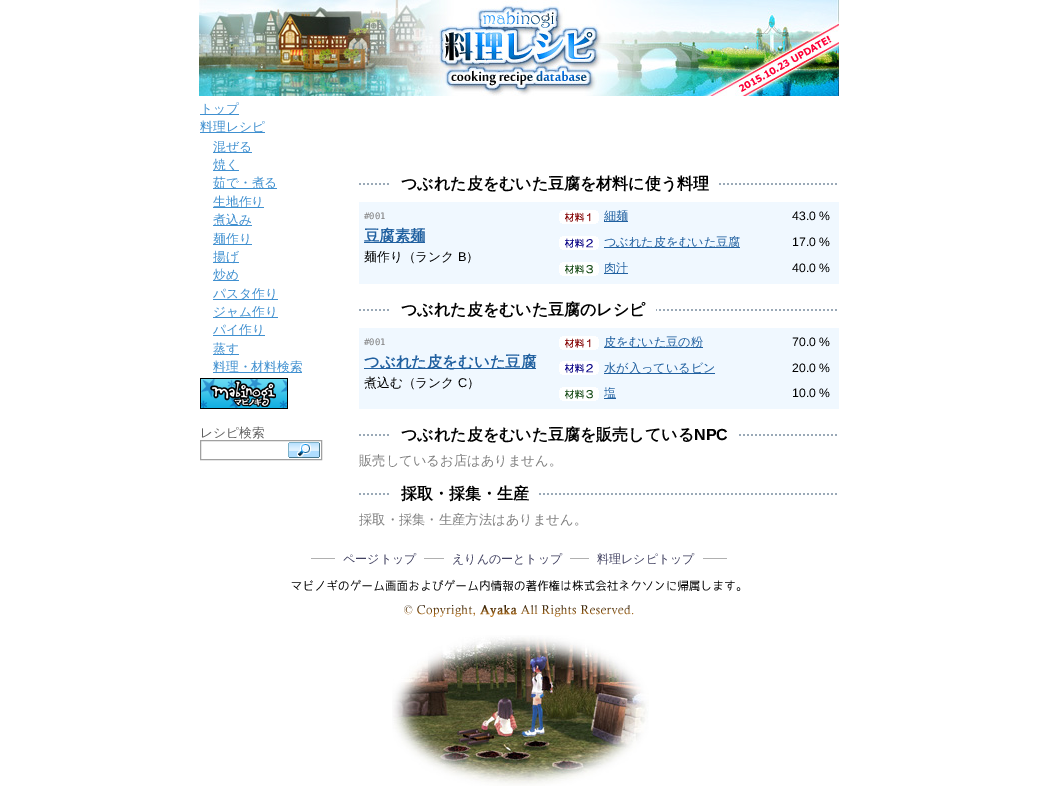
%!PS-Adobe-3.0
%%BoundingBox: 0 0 1038 793
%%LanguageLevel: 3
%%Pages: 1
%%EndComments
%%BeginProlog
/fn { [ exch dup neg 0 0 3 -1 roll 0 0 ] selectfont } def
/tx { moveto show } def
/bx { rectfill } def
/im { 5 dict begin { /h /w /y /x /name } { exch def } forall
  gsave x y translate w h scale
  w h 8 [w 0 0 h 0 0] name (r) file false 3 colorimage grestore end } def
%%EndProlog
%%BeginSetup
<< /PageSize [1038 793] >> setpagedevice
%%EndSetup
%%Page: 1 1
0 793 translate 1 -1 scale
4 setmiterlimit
1 setgray
0 0 1038 793 bx
(image0.raw) 199 0 640 96 im
0.251 0.565 0.816 setrgbcolor
200 114 39 1 bx
/WenQuanYiZenHei-Medium 12.75 fn
(トップ) 200 113 tx
200 132 65 1 bx
(料理レシピ) 200 131 tx
213 152 39 1 bx
(混ぜる) 213 151 tx
213 170 26 1 bx
(焼く) 213 169 tx
213 188 64 1 bx
(茹で・煮る) 213 187 tx
213 207 51 1 bx
(生地作り) 213 206 tx
213 225 39 1 bx
(煮込み) 213 224 tx
213 244 39 1 bx
(麺作り) 213 243 tx
213 262 26 1 bx
(揚げ) 213 261 tx
213 280 26 1 bx
(炒め) 213 279 tx
213 299 65 1 bx
(パスタ作り) 213 298 tx
213 317 65 1 bx
(ジャム作り) 213 316 tx
213 335 52 1 bx
(パイ作り) 213 334 tx
213 354 26 1 bx
(蒸す) 213 353 tx
213 372 89 1 bx
(料理・材料検索) 213 371 tx
(image1.raw) 200 378 88 31 im
0.376 setgray
(レシピ検索) 200 437 tx
0.627 setgray
200.5 440.5 121 19 rectstroke
(image2.raw) 288 442 32 16 im
(image3.raw) 359 183 478 2 im
1 setgray
391 183 326 2 bx
/WenQuanYiZenHei-Bold 16 fn
0 setgray
(つぶれた皮をむいた豆腐を材料に使う料理) 401 189 tx
0.941 0.973 1 setrgbcolor
359 202 480 82 bx
/DejaVuSansMono-Regular 9 fn
0.502 setgray
(#001) 364 219 tx
0.125 0.376 0.627 setrgbcolor
364 242 61 1 bx
/WenQuanYiZenHei-Bold 15.4 fn
(豆腐素麺) 364 241 tx
/WenQuanYiZenHei-Medium 12.75 fn
0 setgray
(麺作り（ランク) 364 261 tx
/LiberationSans-Regular 12.75 fn
(B) 458 261 tx
/WenQuanYiZenHei-Medium 12.75 fn
(）) 466 261 tx
(image4.raw) 559 210 40 14 im
0.125 0.376 0.627 setrgbcolor
604 221 24 1 bx
/WenQuanYiZenHei-Medium 12.2 fn
(細麺) 604 220 tx
/LiberationSans-Regular 12.2 fn
0 setgray
(43.0 %) 792 220 tx
(image5.raw) 559 236 40 14 im
0.125 0.376 0.627 setrgbcolor
604 247 136 1 bx
/WenQuanYiZenHei-Medium 12.2 fn
(つぶれた皮をむいた豆腐) 604 246 tx
/LiberationSans-Regular 12.2 fn
0 setgray
(17.0 %) 792 246 tx
(image6.raw) 559 262 40 14 im
0.125 0.376 0.627 setrgbcolor
604 273 24 1 bx
/WenQuanYiZenHei-Medium 12.2 fn
(肉汁) 604 272 tx
/LiberationSans-Regular 12.2 fn
0 setgray
(40.0 %) 792 272 tx
(image3.raw) 359 309 478 2 im
1 setgray
391 309 265 2 bx
/WenQuanYiZenHei-Bold 16 fn
0 setgray
(つぶれた皮をむいた豆腐のレシピ) 401 315 tx
0.941 0.973 1 setrgbcolor
359 328 480 81 bx
/DejaVuSansMono-Regular 9 fn
0.502 setgray
(#001) 364 345 tx
0.125 0.376 0.627 setrgbcolor
364 368 172 1 bx
/WenQuanYiZenHei-Bold 15.4 fn
(つぶれた皮をむいた豆腐) 364 367 tx
/WenQuanYiZenHei-Medium 12.75 fn
0 setgray
(煮込む（ランク) 364 387 tx
/LiberationSans-Regular 12.75 fn
(C) 458 387 tx
/WenQuanYiZenHei-Medium 12.75 fn
(）) 467 387 tx
(image4.raw) 559 336 40 14 im
0.125 0.376 0.627 setrgbcolor
604 347 99 1 bx
/WenQuanYiZenHei-Medium 12.2 fn
(皮をむいた豆の粉) 604 346 tx
/LiberationSans-Regular 12.2 fn
0 setgray
(70.0 %) 792 346 tx
(image5.raw) 559 361 40 14 im
0.125 0.376 0.627 setrgbcolor
604 373 111 1 bx
/WenQuanYiZenHei-Medium 12.2 fn
(水が入っているビン) 604 372 tx
/LiberationSans-Regular 12.2 fn
0 setgray
(20.0 %) 792 372 tx
(image6.raw) 559 387 40 14 im
0.125 0.376 0.627 setrgbcolor
604 398 12 1 bx
/WenQuanYiZenHei-Medium 12.2 fn
(塩) 604 397 tx
/LiberationSans-Regular 12.2 fn
0 setgray
(10.0 %) 792 397 tx
(image3.raw) 359 434 478 2 im
1 setgray
391 434 346 2 bx
/WenQuanYiZenHei-Bold 16 fn
0 setgray
(つぶれた皮をむいた豆腐を販売している) 401 440 tx
/LiberationSans-Bold 16 fn
(NPC) 694 440 tx
/WenQuanYiZenHei-Medium 13.3 fn
0.502 setgray
(販売しているお店はありません。) 359 465 tx
(image3.raw) 359 493 478 2 im
1 setgray
391 493 146 2 bx
/WenQuanYiZenHei-Bold 16 fn
0 setgray
(採取・採集・生産) 401 499 tx
/WenQuanYiZenHei-Medium 13.3 fn
0.502 setgray
(採取・採集・生産方法はありません。) 359 524 tx
(image7.raw) 392 635 257 151 im
0.69 setgray
311 558 416 1 bx
1 setgray
335 558 89 1 bx
/WenQuanYiZenHei-Medium 12 fn
0.251 0.251 0.376 setrgbcolor
(ページトップ) 343 563 tx
1 setgray
444 558 126 1 bx
0.251 0.251 0.376 setrgbcolor
(えりんのーとトップ) 452 563 tx
1 setgray
589 558 114 1 bx
0.251 0.251 0.376 setrgbcolor
(料理レシピトップ) 597 563 tx
(image8.raw) 291 579 450 13 im
(image9.raw) 404 605 230 12 im
showpage
%%EOF
